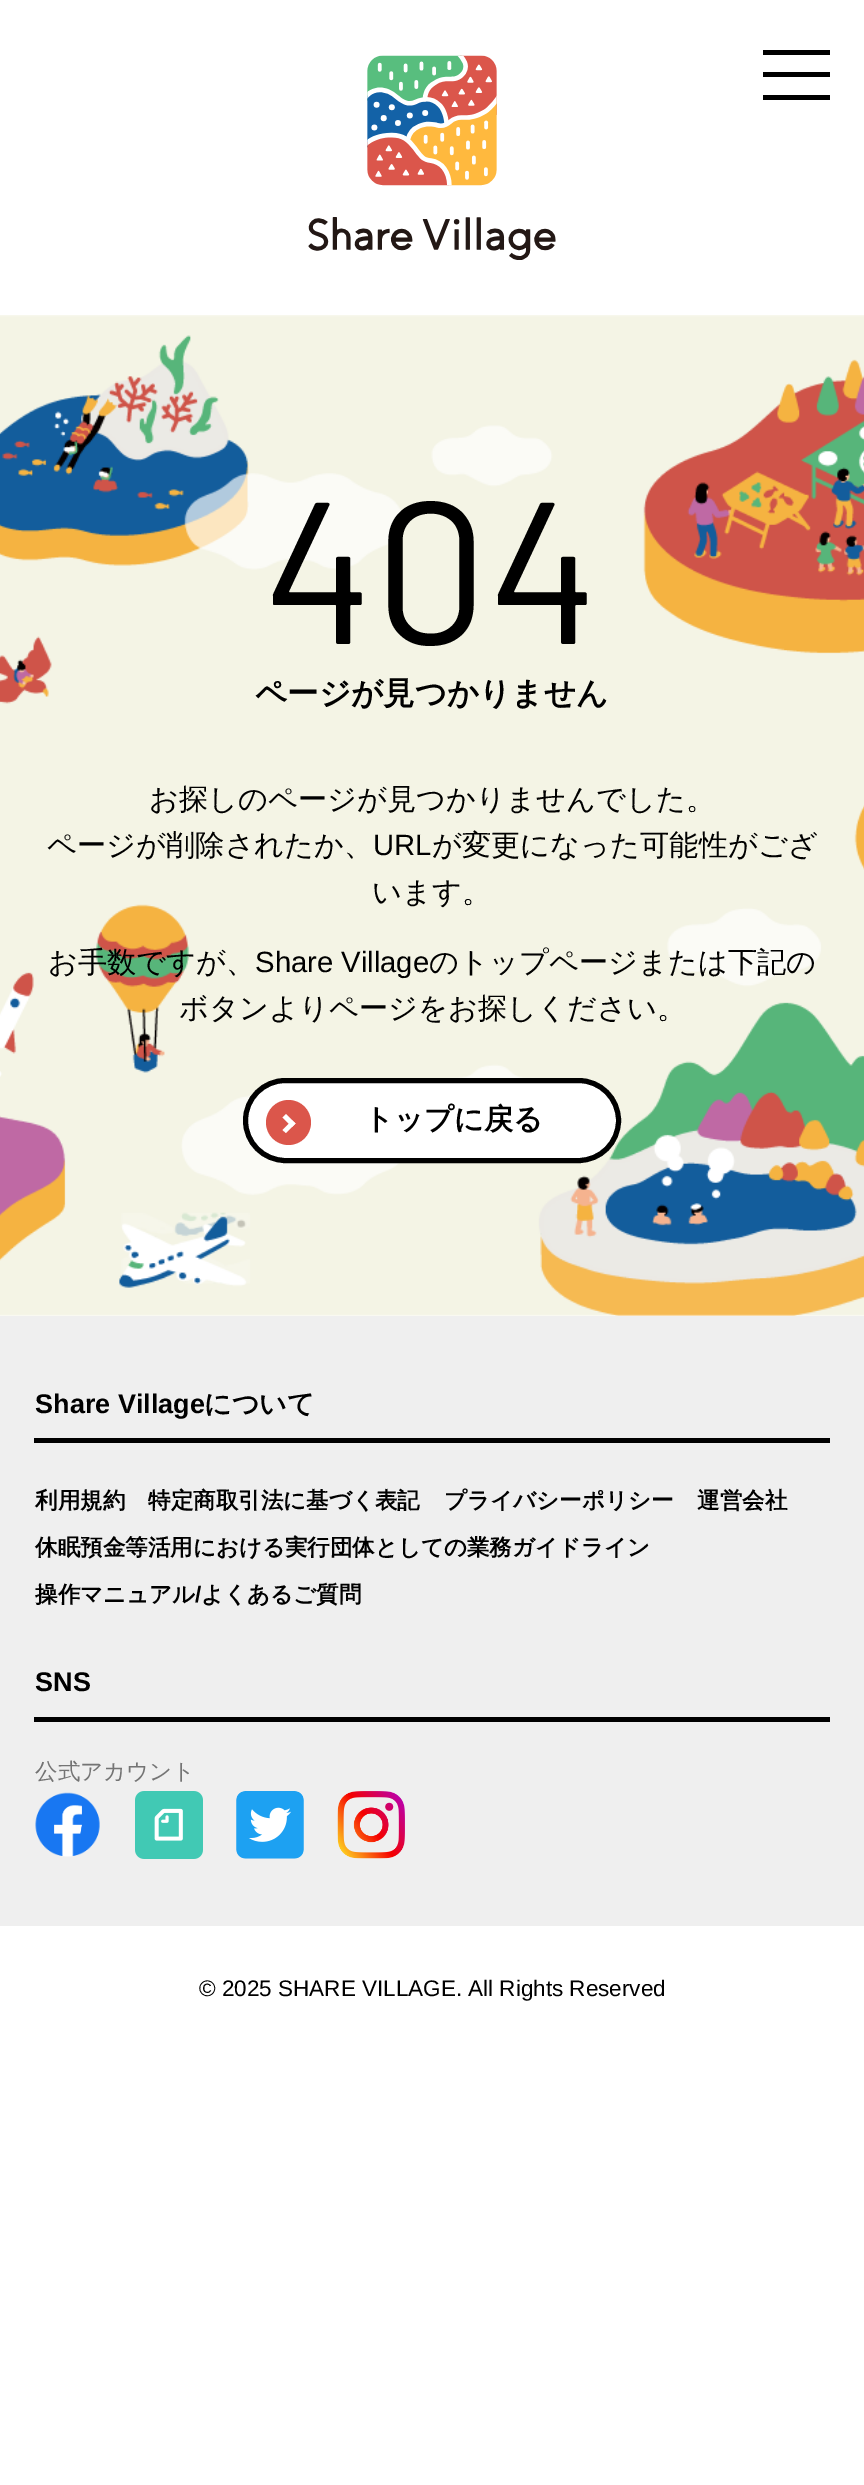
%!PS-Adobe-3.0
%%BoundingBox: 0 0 864 2485
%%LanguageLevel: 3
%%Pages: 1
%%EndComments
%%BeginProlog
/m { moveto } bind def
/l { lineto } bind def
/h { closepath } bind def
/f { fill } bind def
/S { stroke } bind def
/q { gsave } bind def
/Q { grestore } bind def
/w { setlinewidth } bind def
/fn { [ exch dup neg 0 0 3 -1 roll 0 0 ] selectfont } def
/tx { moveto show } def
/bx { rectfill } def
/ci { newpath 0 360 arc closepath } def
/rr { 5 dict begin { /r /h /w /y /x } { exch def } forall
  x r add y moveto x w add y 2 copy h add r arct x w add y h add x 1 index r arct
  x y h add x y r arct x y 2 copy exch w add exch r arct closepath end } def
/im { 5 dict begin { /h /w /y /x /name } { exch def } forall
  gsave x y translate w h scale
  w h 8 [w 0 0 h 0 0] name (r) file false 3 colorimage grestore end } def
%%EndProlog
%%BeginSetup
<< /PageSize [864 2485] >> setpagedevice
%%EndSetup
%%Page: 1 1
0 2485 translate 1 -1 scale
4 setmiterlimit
1 setgray
0 0 864 2485 bx
(image0.raw) 308 55 248 205 im
0 setgray
763 50 67 5 bx
763 72 67 5 bx
763 95 67 5 bx
(image1.raw) 0 315 864 1001 im
/Barlow-Regular 202 fn
(404) 263 644 tx
/WenQuanYiZenHei-Bold 31.5 fn
(ページが見つかりません) 255 704 tx
/WenQuanYiZenHei-Medium 29.25 fn
(お探しのページが見つかりませんでした。) 149 809 tx
(ページが削除されたか、) 47 855 tx
/LiberationSans-Regular 29.25 fn
(URL) 373 855 tx
/WenQuanYiZenHei-Medium 29.25 fn
(が変更になった可能性がござ) 432 855 tx
(います。) 372 902 tx
(お手数ですが、) 48 972 tx
/LiberationSans-Regular 29.25 fn
(Share Village) 255 972 tx
/WenQuanYiZenHei-Medium 29.25 fn
(のトップページまたは下記の) 429 972 tx
(ボタンよりページをお探しください。) 179 1018 tx
1 setgray
245.5 1080.5 373 80 40 rr q f Q
0 setgray
5 w
S
0.859 0.337 0.294 setrgbcolor
288.5 1122.5 22.5 ci f
1 setgray
286 1114 m 295.5 1123.5 l 292 1127 l 282.5 1117.5 l h f
292 1120.5 m 295.5 1123.5 l 286 1133 l 282.5 1130 l h f
/WenQuanYiZenHei-Bold 29.25 fn
0 setgray
(トップに戻る) 364 1129 tx
0.937 setgray
0 1316 864 610 bx
0 setgray
34 1438 796 5 bx
/LiberationSans-Bold 27 fn
(Share Village) 35 1413 tx
/WenQuanYiZenHei-Bold 27 fn
(について) 204 1413 tx
/WenQuanYiZenHei-Bold 22.5 fn
(利用規約) 35 1508 tx
(特定商取引法に基づく表記) 148 1508 tx
(プライバシーポリシー) 444 1508 tx
(運営会社) 697 1508 tx
(休眠預金等活用における実行団体としての業務ガイドライン) 35 1555 tx
(操作マニュアル) 35 1602 tx
/LiberationSans-Bold 22.5 fn
(/) 195 1602 tx
/WenQuanYiZenHei-Bold 22.5 fn
(よくあるご質問) 201 1602 tx
34 1717 796 5 bx
/LiberationSans-Bold 27 fn
(SNS) 35 1691 tx
/WenQuanYiZenHei-Medium 22.5 fn
0.455 setgray
(公式アカウント) 35 1779 tx
(image2.raw) 35 1792 65 65 im
(image3.raw) 135 1791 68 68 im
(image4.raw) 236 1791 68 68 im
(image5.raw) 337 1791 68 68 im
/LiberationSans-Regular 22.5 fn
0 setgray
(© 2025 SHARE VILLAGE. All Rights Reserved) 199 1996 tx
showpage
%%EOF
